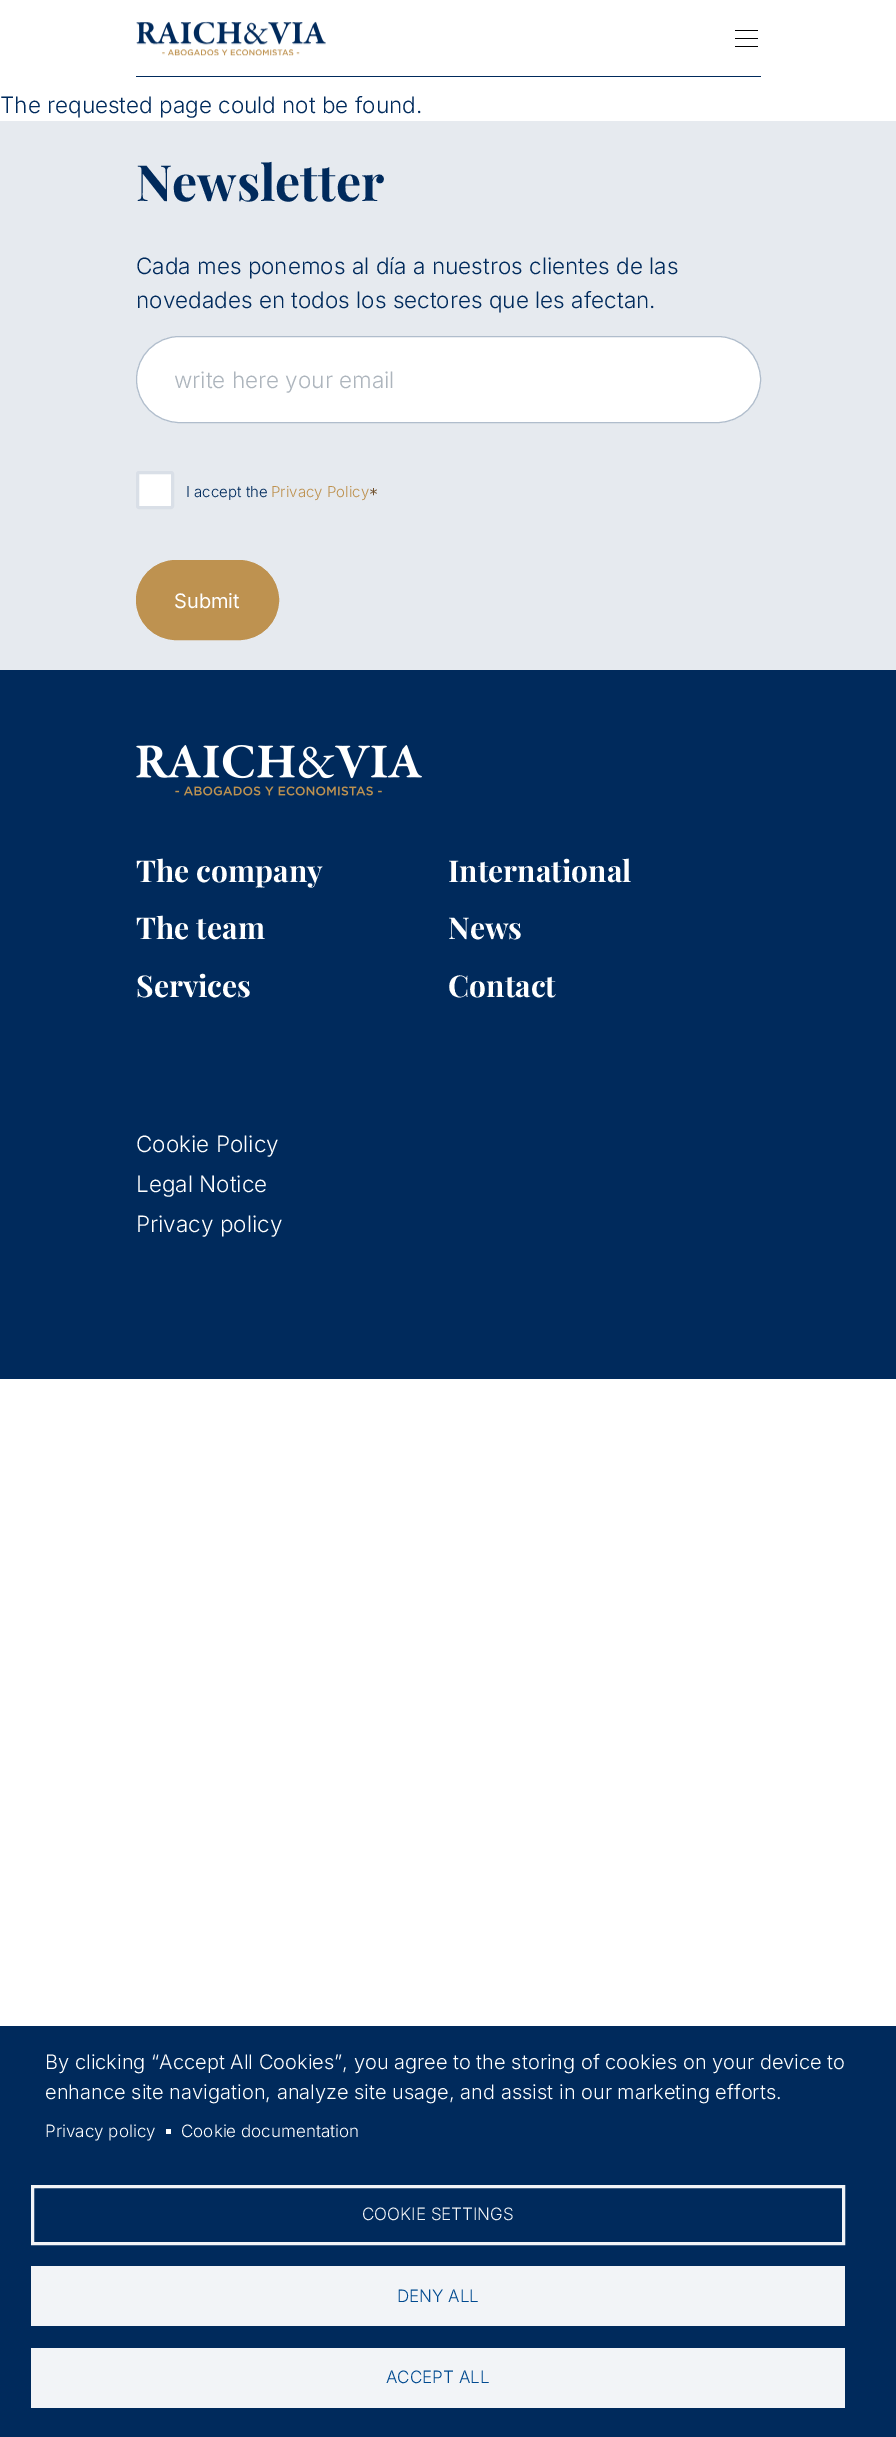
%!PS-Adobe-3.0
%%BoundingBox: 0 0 896 2437
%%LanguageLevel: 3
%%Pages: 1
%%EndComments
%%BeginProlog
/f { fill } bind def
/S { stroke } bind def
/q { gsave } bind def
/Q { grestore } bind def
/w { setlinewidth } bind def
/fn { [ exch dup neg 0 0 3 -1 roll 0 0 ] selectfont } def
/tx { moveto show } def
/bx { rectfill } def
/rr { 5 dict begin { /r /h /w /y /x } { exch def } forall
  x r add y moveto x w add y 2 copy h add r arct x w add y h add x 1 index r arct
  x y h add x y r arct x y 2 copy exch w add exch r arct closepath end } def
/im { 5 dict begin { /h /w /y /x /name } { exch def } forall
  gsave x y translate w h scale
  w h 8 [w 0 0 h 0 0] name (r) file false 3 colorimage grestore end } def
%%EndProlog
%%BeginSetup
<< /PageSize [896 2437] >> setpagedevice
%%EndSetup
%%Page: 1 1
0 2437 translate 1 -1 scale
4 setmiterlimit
1 setgray
0 0 896 2437 bx
0 0.165 0.361 setrgbcolor
136 76 625 1 bx
(image0.raw) 136 21 190 35 im
0 setgray
735 30 23 1 bx
735 38 23 1 bx
735 46 23 1 bx
/Inter-Light 22.5 fn
0 0.165 0.361 setrgbcolor
(The requested page could not be found.) 0 113 tx
0.902 0.918 0.937 setrgbcolor
0 121 896 549 bx
/PlayfairDisplay-Bold 50 fn
0 0.165 0.361 setrgbcolor
(Newsletter) 136 201 tx
/Inter-Light 22.5 fn
(Cada mes ponemos al día a nuestros clientes de las) 136 274 tx
(novedades en todos los sectores que les afectan.) 136 308 tx
1 setgray
136.5 336.5 624 86 43 rr q f Q
0.69 0.741 0.8 setrgbcolor
S
0.678 0.71 0.741 setrgbcolor
(write here your email) 174 388 tx
1 setgray
137.5 472.5 35 35 1.5 rr q f Q
0.851 0.875 0.906 setrgbcolor
3 w
S
/Inter-Light 15 fn
0 0.165 0.361 setrgbcolor
(I accept the) 186 497 tx
0.745 0.573 0.314 setrgbcolor
(Privacy Policy) 271 497 tx
/Inter-Light 18 fn
0.447 0.325 0.188 setrgbcolor
(*) 369 501 tx
0.745 0.573 0.314 setrgbcolor
136.5 560.5 142 79 39.5 rr q f Q
1 w
S
/Inter-Regular 20 fn
1 setgray
(Submit) 174 608 tx
0 0.165 0.361 setrgbcolor
0 2026 896 411 bx
/Inter-Light 20 fn
1 setgray
(By clicking “Accept All Cookies”, you agree to the storing of cookies on your device to) 45 2069 tx
(enhance site navigation, analyze site usage, and assist in our marketing efforts.) 45 2099 tx
/Inter-Light 17 fn
(Privacy policy) 45 2137 tx
166 2129 5 5 bx
(Cookie documentation) 181 2137 tx
0.949 0.957 0.969 setrgbcolor
3 w
32.5 2186.5 811 57 rectstroke
(COOKIE SETTINGS) 362 2220 tx
31 2266 814 60 bx
0 0.29 0.565 setrgbcolor
(DENY ALL) 397 2302 tx
0.949 0.957 0.969 setrgbcolor
31 2348 814 60 bx
0 0.29 0.565 setrgbcolor
(ACCEPT ALL) 386 2383 tx
0 0.165 0.361 setrgbcolor
0 670 896 709 bx
(image1.raw) 136 745 286 51 im
/PlayfairDisplay-Bold 30 fn
1 setgray
(The company) 136 882 tx
(The team) 136 939 tx
(Services) 136 997 tx
(International) 448 882 tx
(News) 448 939 tx
(Contact) 448 997 tx
/Inter-Light 22.5 fn
(Cookie Policy) 136 1152 tx
(Legal Notice) 136 1192 tx
(Privacy policy) 136 1232 tx
showpage
%%EOF
